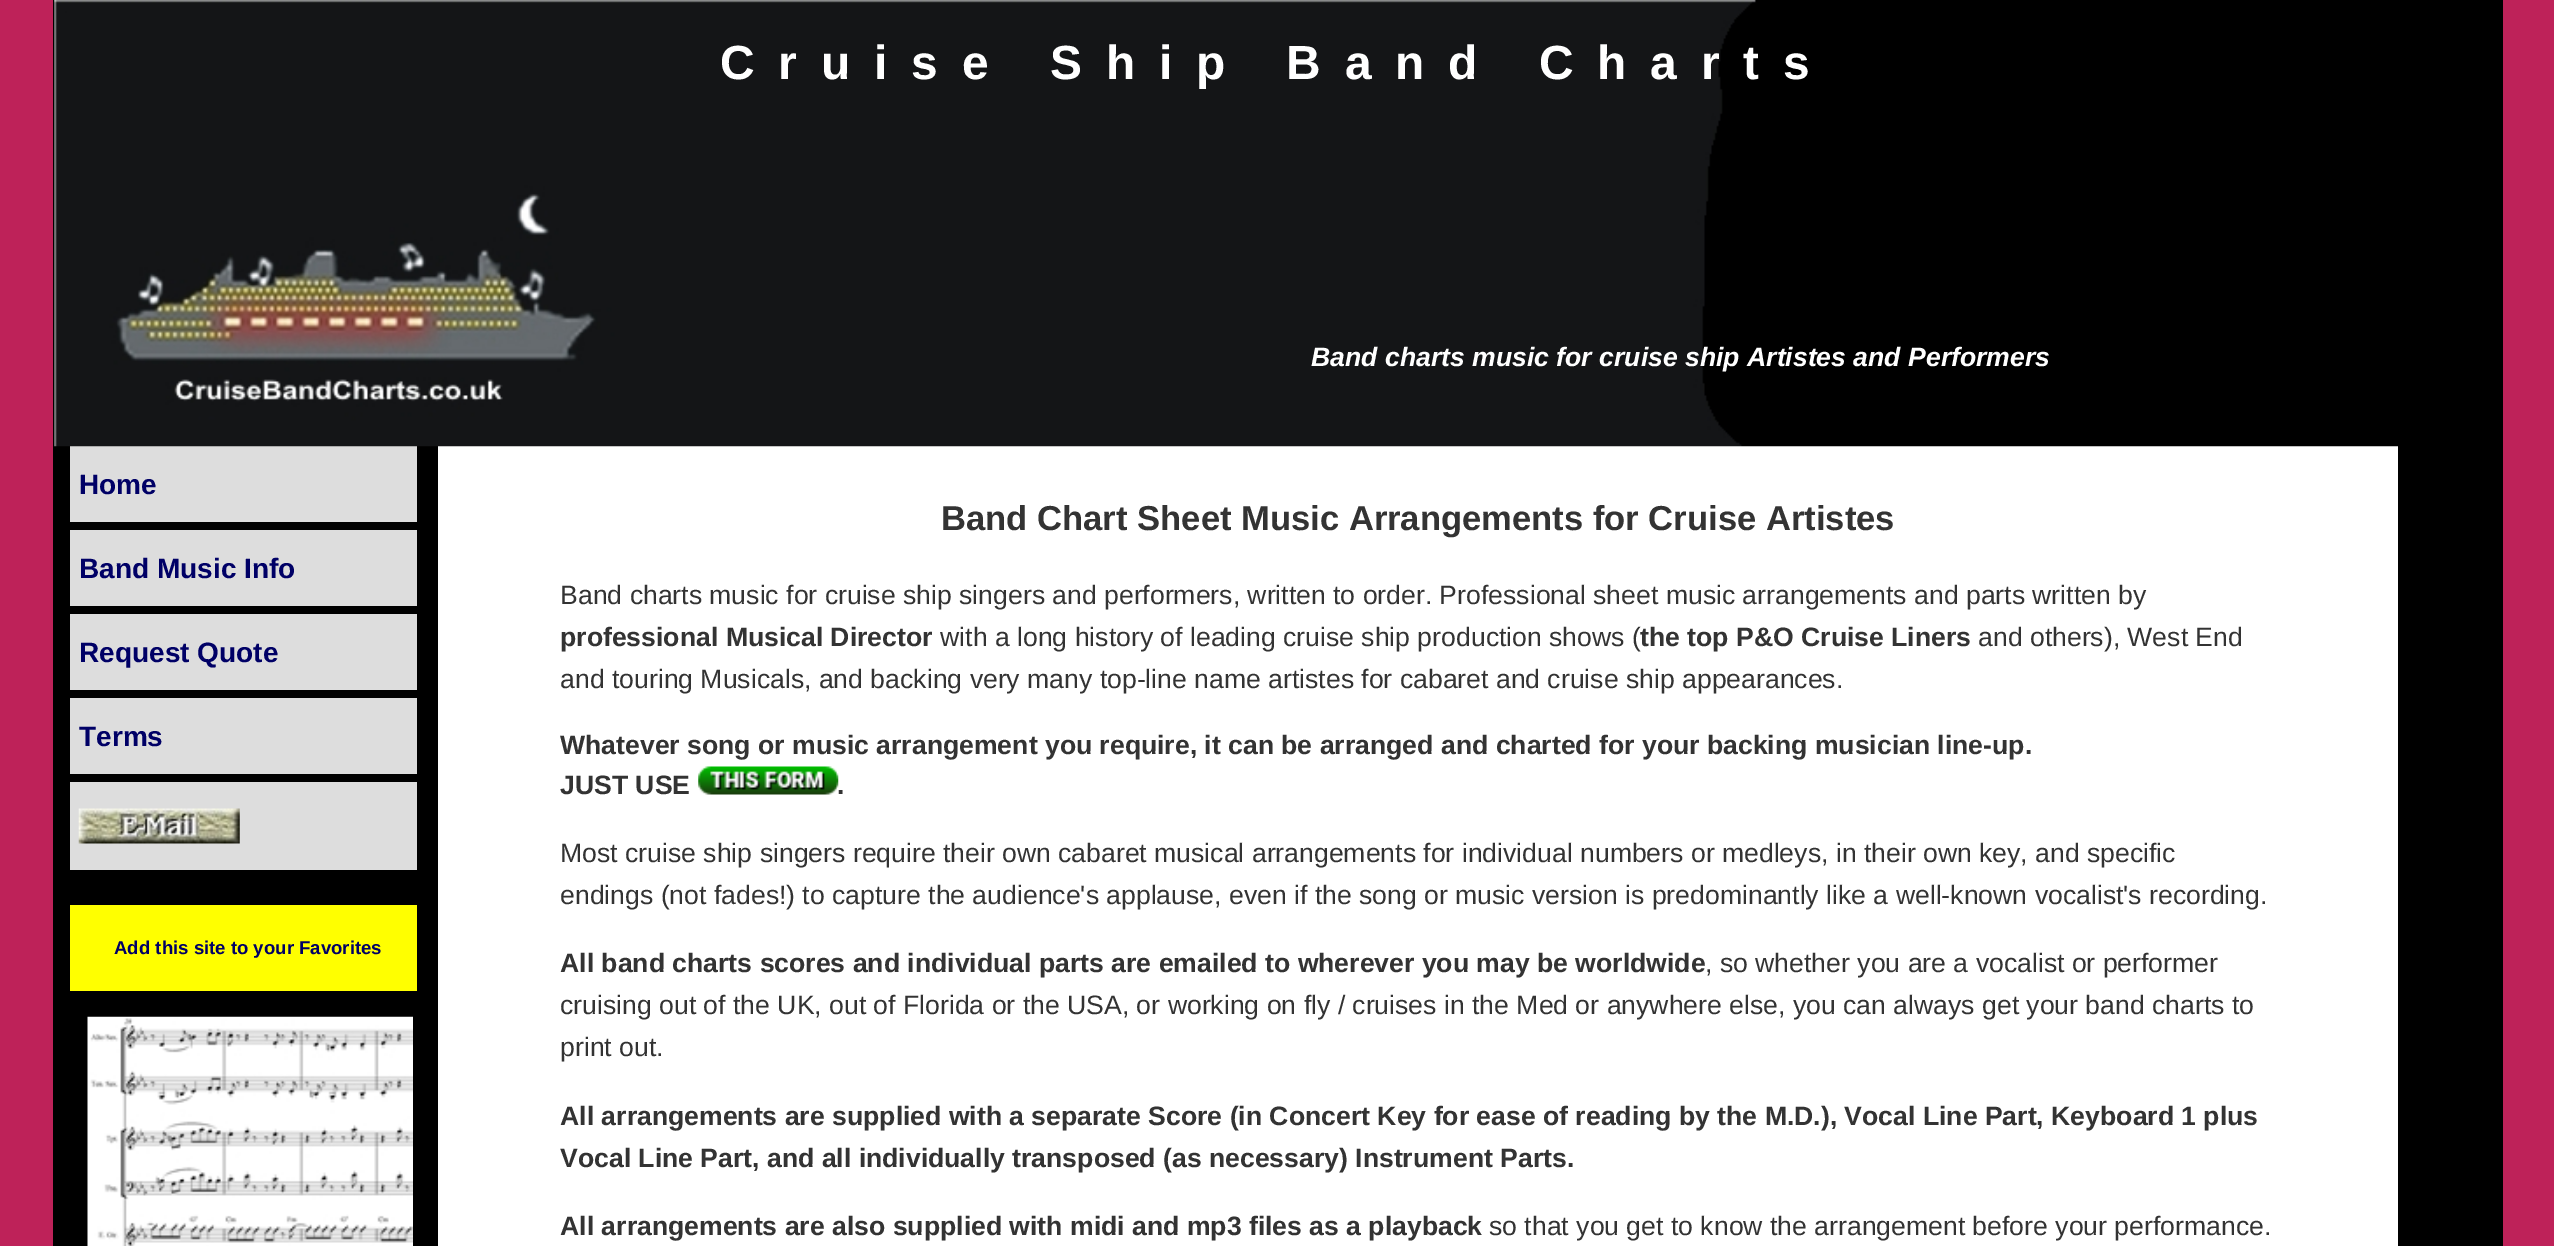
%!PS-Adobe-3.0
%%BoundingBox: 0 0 2554 1246
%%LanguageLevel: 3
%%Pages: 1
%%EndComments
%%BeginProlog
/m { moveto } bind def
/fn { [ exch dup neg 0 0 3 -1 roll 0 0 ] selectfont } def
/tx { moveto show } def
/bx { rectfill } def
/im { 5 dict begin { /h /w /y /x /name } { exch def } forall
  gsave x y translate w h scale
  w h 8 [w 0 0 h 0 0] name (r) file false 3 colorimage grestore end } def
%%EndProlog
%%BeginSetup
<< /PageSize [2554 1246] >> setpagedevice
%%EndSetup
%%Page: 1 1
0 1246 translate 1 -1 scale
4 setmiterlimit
0.745 0.133 0.349 setrgbcolor
0 0 2554 1246 bx
0 setgray
53 0 2450 1246 bx
0.867 setgray
70 446 347 76 bx
1 setgray
438 446 1960 800 bx
(image0.raw) 54 0 2344 447 im
/LiberationSans-Bold 47.9 fn
720 79 m 23.9 0 (Cruise Ship Band Charts) ashow
/LiberationSans-BoldItalic 26.6 fn
(Band charts music for cruise ship Artistes and Performers) 1311 366 tx
/LiberationSans-Bold 28 fn
0 0 0.4 setrgbcolor
(Home) 79 494 tx
0.867 setgray
70 530 347 76 bx
0 0 0.4 setrgbcolor
(Band Music Info) 79 578 tx
0.867 setgray
70 614 347 76 bx
0 0 0.4 setrgbcolor
(Request Quote) 79 662 tx
0.867 setgray
70 698 347 76 bx
0 0 0.4 setrgbcolor
(Terms) 79 746 tx
0.867 setgray
70 782 347 88 bx
(image1.raw) 78 808 162 36 im
1 1 0 setrgbcolor
70 905 347 86 bx
/LiberationSans-Bold 18.6 fn
0 0 0.4 setrgbcolor
(Add this site to your Favorites) 114 954 tx
(image2.raw) 87 1016 326 230 im
/LiberationSans-Bold 34.6 fn
0.2 setgray
(Band Chart Sheet Music Arrangements for Cruise Artistes) 941 530 tx
/LiberationSans-Regular 26.6 fn
(Band charts music for cruise ship singers and performers, written to order. Professional sheet music arrangements and parts written by) 560 604 tx
/LiberationSans-Bold 26.6 fn
(professional Musical Director) 560 646 tx
/LiberationSans-Regular 26.6 fn
(with a long history of leading cruise ship production shows \() 940 646 tx
/LiberationSans-Bold 26.6 fn
(the top P&O Cruise Liners) 1640 646 tx
/LiberationSans-Regular 26.6 fn
(and others\), West End) 1978 646 tx
(and touring Musicals, and backing very many top-line name artistes for cabaret and cruise ship appearances.) 560 688 tx
/LiberationSans-Bold 26.6 fn
(Whatever song or music arrangement you require, it can be arranged and charted for your backing musician line-up.) 560 754 tx
(JUST USE) 560 794 tx
(image3.raw) 698 766 141 29 im
(.) 837 794 tx
/LiberationSans-Regular 26.6 fn
(Most cruise ship singers require their own cabaret musical arrangements for individual numbers or medleys, in their own key, and specific) 560 862 tx
(endings \(not fades!\) to capture the audience's applause, even if the song or music version is predominantly like a well-known vocalist's recording.) 560 904 tx
/LiberationSans-Bold 26.6 fn
(All band charts scores and individual parts are emailed to wherever you may be worldwide) 560 972 tx
/LiberationSans-Regular 26.6 fn
(, so whether you are a vocalist or performer) 1705 972 tx
(cruising out of the UK, out of Florida or the USA, or working on fly / cruises in the Med or anywhere else, you can always get your band charts to) 560 1014 tx
(print out.) 560 1056 tx
/LiberationSans-Bold 26.6 fn
(All arrangements are supplied with a separate Score \(in Concert Key for ease of reading by the M.D.\), Vocal Line Part, Keyboard 1 plus) 560 1125 tx
(Vocal Line Part, and all individually transposed \(as necessary\) Instrument Parts.) 560 1167 tx
(All arrangements are also supplied with midi and mp3 files as a playback) 560 1235 tx
/LiberationSans-Regular 26.6 fn
(so that you get to know the arrangement before your performance.) 1489 1235 tx
showpage
%%EOF
